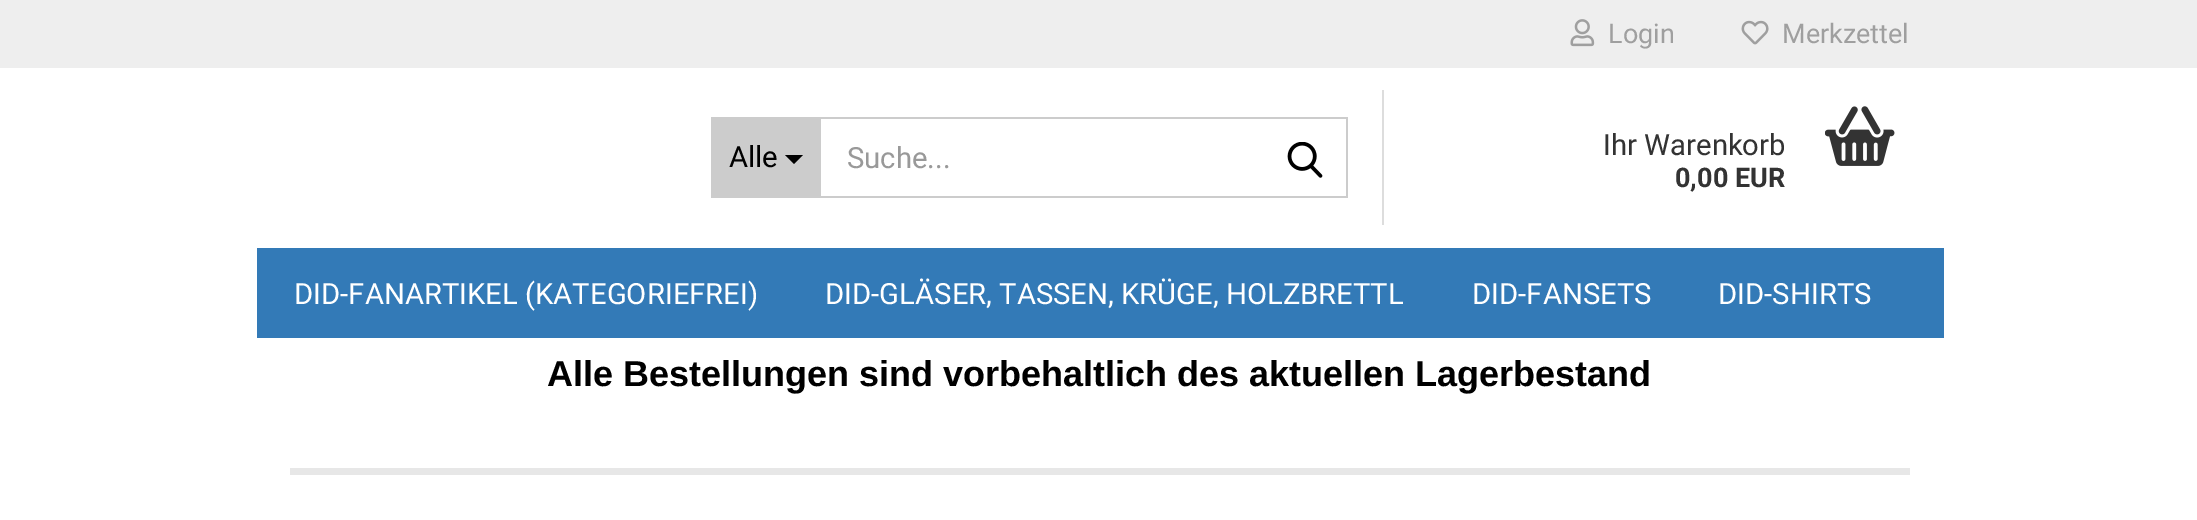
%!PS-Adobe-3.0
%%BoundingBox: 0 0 2197 520
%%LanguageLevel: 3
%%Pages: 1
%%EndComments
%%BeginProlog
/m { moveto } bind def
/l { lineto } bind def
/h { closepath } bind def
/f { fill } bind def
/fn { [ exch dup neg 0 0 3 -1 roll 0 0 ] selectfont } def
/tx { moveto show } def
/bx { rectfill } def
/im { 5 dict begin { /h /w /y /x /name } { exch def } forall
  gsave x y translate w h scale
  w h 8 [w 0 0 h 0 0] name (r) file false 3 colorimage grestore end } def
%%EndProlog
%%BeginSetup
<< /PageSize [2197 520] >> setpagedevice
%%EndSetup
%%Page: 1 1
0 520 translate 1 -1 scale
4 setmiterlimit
1 setgray
0 0 2197 520 bx
0.933 setgray
0 0 2197 68 bx
(image0.raw) 1570 19 25 28 im
/Roboto-Regular 27 fn
0.624 setgray
(Login) 1608 43 tx
(image1.raw) 1741 20 28 25 im
(Merkzettel) 1782 43 tx
0.8 setgray
711 117 110 81 bx
/Roboto-Regular 29.25 fn
0 setgray
(Alle) 729 167 tx
785 155 m 803 155 l 794 164 l h f
0.8 setgray
821 117 527 2 bx
1346 117 2 81 bx
821 196 527 2 bx
0.6 setgray
(Suche...) 847 168 tx
(image2.raw) 1287 142 36 36 im
0.867 setgray
1382 90 2 135 bx
0.2 setgray
(Ihr Warenkorb) 1603 155 tx
/Roboto-Bold 27 fn
(0,00 EUR) 1675 187 tx
(image3.raw) 1825 106 70 60 im
0.2 0.478 0.718 setrgbcolor
257 248 1687 90 bx
/Roboto-Regular 29.25 fn
1 setgray
(DID-FANARTIKEL \(KATEGORIEFREI\)) 294 304 tx
(DID-GLÄSER, TASSEN, KRÜGE, HOLZBRETTL) 825 304 tx
(DID-FANSETS) 1472 304 tx
(DID-SHIRTS) 1718 304 tx
0.906 setgray
290 468 1620 7 bx
/LiberationSans-Bold 36 fn
0 setgray
(Alle Bestellungen sind vorbehaltlich des aktuellen Lagerbestand) 547 386 tx
showpage
%%EOF
